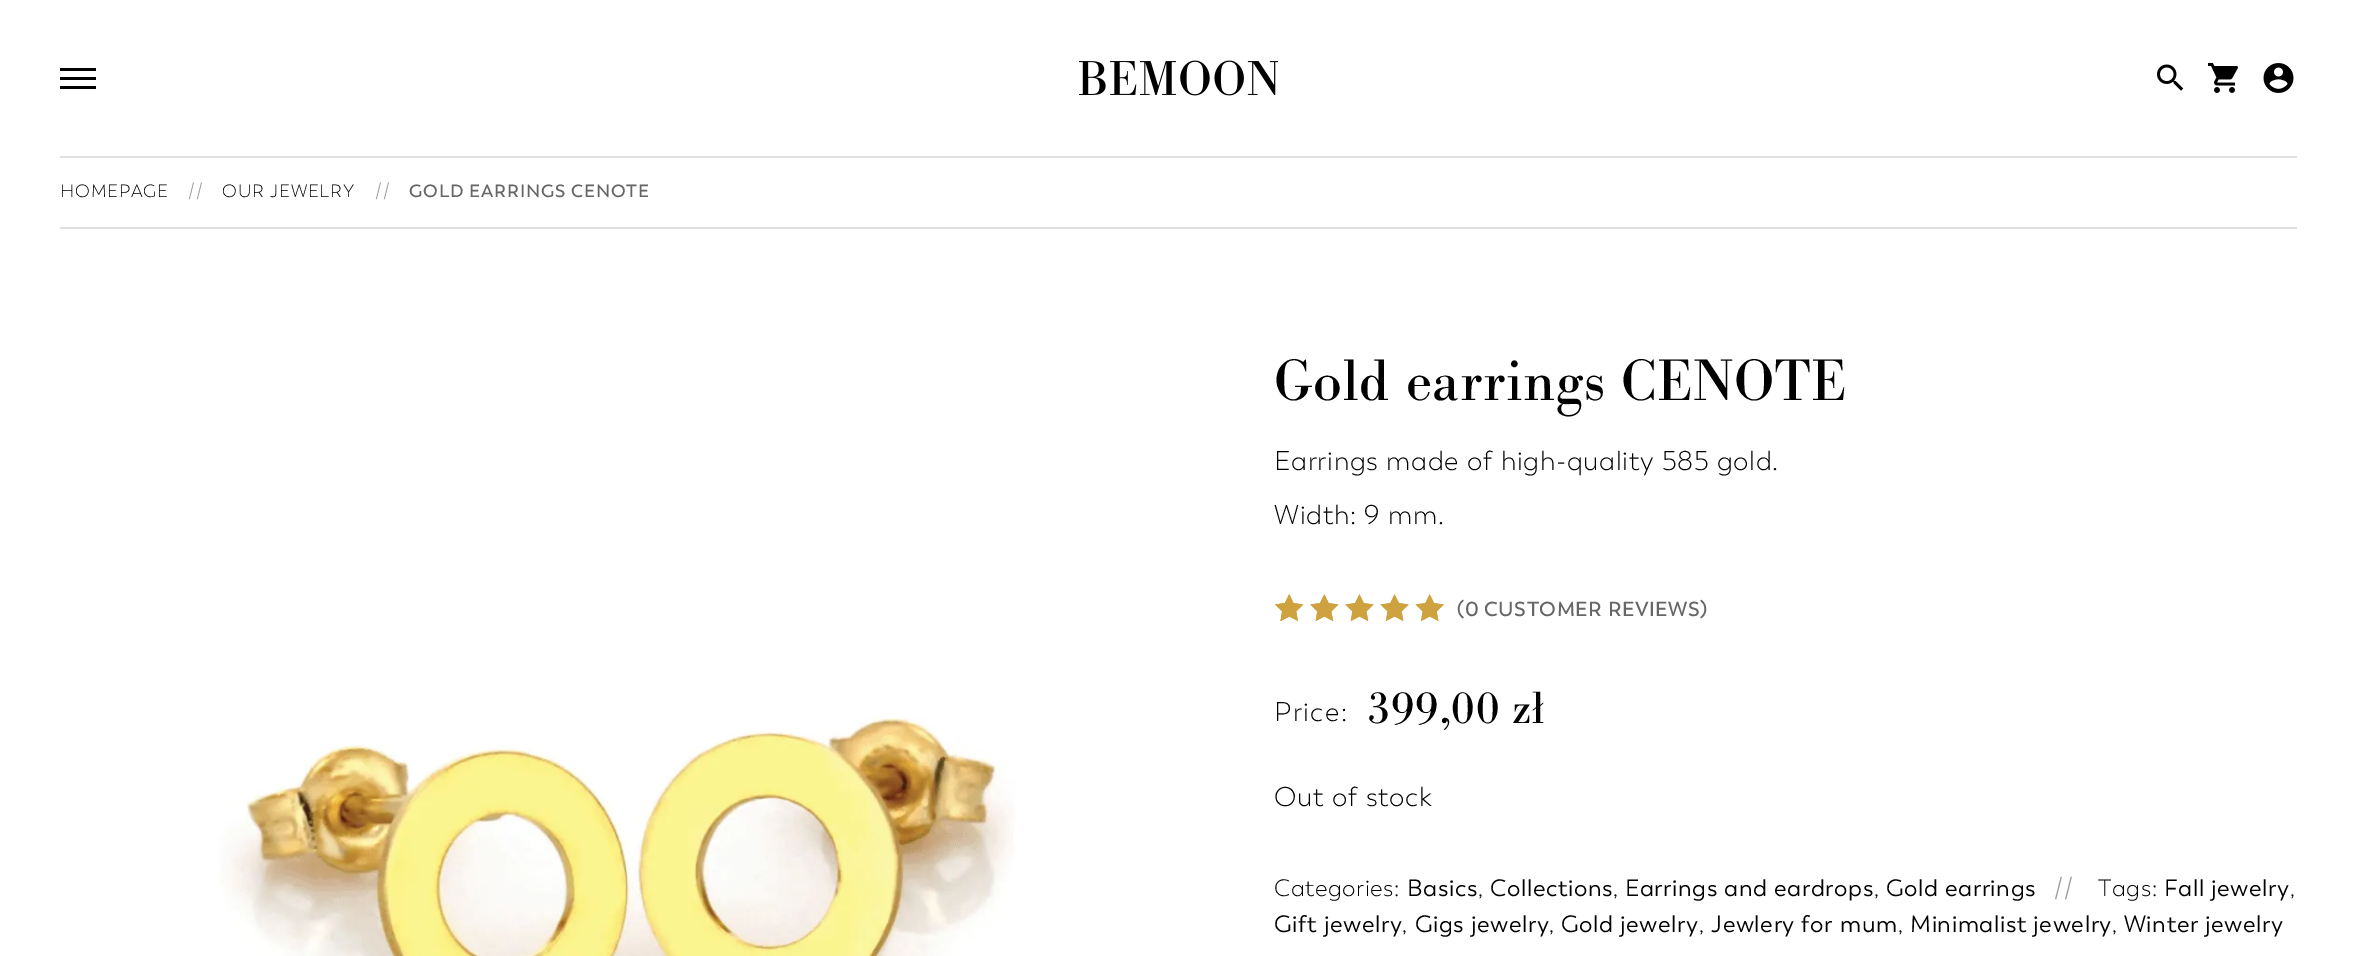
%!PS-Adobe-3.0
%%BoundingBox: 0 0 2356 956
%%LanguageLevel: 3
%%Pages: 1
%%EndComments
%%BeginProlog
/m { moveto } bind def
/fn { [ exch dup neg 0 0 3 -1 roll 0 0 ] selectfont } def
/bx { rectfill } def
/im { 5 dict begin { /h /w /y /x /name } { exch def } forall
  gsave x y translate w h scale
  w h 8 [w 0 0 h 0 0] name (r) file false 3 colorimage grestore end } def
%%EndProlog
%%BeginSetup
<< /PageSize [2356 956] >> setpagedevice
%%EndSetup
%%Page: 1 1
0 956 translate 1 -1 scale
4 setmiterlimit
1 setgray
0 0 2356 956 bx
0 setgray
60 68 36 3 bx
60 77 36 3 bx
60 86 36 3 bx
(image0.raw) 1079 60 199 36 im
(image1.raw) 2157 64 27 27 im
(image2.raw) 2207 63 31 30 im
(image3.raw) 2263 63 31 30 im
0.878 setgray
60 156 2237 2 bx
60 227 2237 2 bx
/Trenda-Light 17.75 fn
0 setgray
60 197 m 0.9 0 (HOMEPAGE) ashow
/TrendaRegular-Regular 17.75 fn
0.62 setgray
188 197 m 0.9 0 (//) ashow
/Trenda-Light 17.75 fn
0 setgray
222 197 m 0.9 0 (OUR JEWELRY) ashow
/TrendaRegular-Regular 17.75 fn
0.62 setgray
375 197 m 0.9 0 (//) ashow
/Trenda-SemiBold 17.75 fn
0.4 setgray
409 197 m 0.9 0 (GOLD EARRINGS CENOTE) ashow
(image4.raw) 219 717 799 239 im
/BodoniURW-Regular 60.75 fn
0 setgray
1274 400 m 0.7 0 (Gold earrings CENOTE) ashow
/Trenda-Light 27 fn
1274 470 m 0.7 0 (Earrings made of high-quality 585 gold.) ashow
1274 524 m 0.7 0 (Width: 9 mm.) ashow
(image5.raw) 1275 594 169 27 im
(image6.raw) 1275 594 169 27 im
(image7.raw) 1275 594 14 27 im
/Trenda-SemiBold 20.25 fn
0.4 setgray
1457 616 m 0.5 0 (\(0 CUSTOMER REVIEWS\)) ashow
/Trenda-Light 27 fn
0 setgray
1274 721 m 1.5 0 (Price:) ashow
/BodoniURW-Regular 47 fn
1367 723 m 0.7 0 (399,00 zł) ashow
/Trenda-Light 27 fn
1274 806 m 0.7 0 (Out of stock) ashow
/Trenda-Light 23.6 fn
1274 896 m 0.6 0 (Categories:) ashow
/TrendaRegular-Regular 23.6 fn
1407 896 m 0.6 0 (Basics) ashow
/Trenda-Light 23.6 fn
1478 896 m 0.6 0 (,) ashow
/TrendaRegular-Regular 23.6 fn
1490 896 m 0.6 0 (Collections) ashow
/Trenda-Light 23.6 fn
1613 896 m 0.6 0 (,) ashow
/TrendaRegular-Regular 23.6 fn
1625 896 m 0.6 0 (Earrings and eardrops) ashow
/Trenda-Light 23.6 fn
1874 896 m 0.6 0 (,) ashow
/TrendaRegular-Regular 23.6 fn
1886 896 m 0.6 0 (Gold earrings) ashow
0.62 setgray
2054 896 m 0.6 0 (//) ashow
/Trenda-Light 23.6 fn
0 setgray
2098 896 m 0.6 0 (Tags:) ashow
/TrendaRegular-Regular 23.6 fn
2164 896 m 0.6 0 (Fall jewelry) ashow
/Trenda-Light 23.6 fn
2290 896 m 0.6 0 (,) ashow
/TrendaRegular-Regular 23.6 fn
1274 932 m 0.6 0 (Gift jewelry) ashow
/Trenda-Light 23.6 fn
1402 932 m 0.6 0 (,) ashow
/TrendaRegular-Regular 23.6 fn
1415 932 m 0.6 0 (Gigs jewelry) ashow
/Trenda-Light 23.6 fn
1549 932 m 0.6 0 (,) ashow
/TrendaRegular-Regular 23.6 fn
1561 932 m 0.6 0 (Gold jewelry) ashow
/Trenda-Light 23.6 fn
1699 932 m 0.6 0 (,) ashow
/TrendaRegular-Regular 23.6 fn
1711 932 m 0.6 0 (Jewlery for mum) ashow
/Trenda-Light 23.6 fn
1898 932 m 0.6 0 (,) ashow
/TrendaRegular-Regular 23.6 fn
1910 932 m 0.6 0 (Minimalist jewelry) ashow
/Trenda-Light 23.6 fn
2112 932 m 0.6 0 (,) ashow
/TrendaRegular-Regular 23.6 fn
2124 932 m 0.6 0 (Winter jewelry) ashow
showpage
%%EOF
